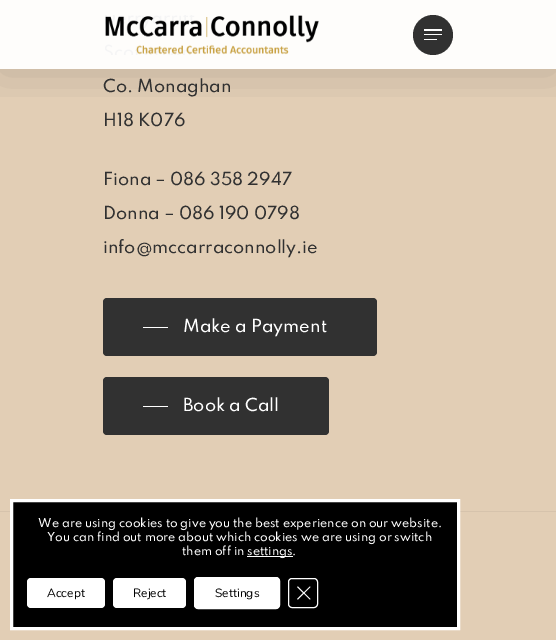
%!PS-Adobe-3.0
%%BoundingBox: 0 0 556 640
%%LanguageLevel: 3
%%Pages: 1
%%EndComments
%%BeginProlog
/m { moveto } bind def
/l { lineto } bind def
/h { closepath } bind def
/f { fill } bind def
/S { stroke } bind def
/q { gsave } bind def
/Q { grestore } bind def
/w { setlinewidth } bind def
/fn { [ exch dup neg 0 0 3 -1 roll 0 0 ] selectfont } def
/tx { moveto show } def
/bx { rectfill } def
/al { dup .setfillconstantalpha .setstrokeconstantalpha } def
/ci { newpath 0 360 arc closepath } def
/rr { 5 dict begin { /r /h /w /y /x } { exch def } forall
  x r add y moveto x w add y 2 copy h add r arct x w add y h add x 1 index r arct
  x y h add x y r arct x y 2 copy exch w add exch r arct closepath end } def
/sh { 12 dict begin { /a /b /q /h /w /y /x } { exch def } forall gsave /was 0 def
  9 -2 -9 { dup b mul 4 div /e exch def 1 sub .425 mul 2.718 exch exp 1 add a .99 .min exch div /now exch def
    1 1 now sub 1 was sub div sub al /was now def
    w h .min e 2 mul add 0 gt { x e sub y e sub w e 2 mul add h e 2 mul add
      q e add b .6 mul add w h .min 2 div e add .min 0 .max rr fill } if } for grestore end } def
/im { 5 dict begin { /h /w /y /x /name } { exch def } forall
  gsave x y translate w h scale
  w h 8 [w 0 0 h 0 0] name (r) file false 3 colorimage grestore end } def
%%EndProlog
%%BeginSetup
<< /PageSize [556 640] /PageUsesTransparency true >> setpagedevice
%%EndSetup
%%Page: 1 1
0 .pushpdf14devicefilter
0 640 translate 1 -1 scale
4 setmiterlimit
0.886 0.808 0.71 setrgbcolor
0 0 556 640 bx
0.996 0.992 0.984 setrgbcolor
0 0 556 69 bx
q
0 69 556 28 rectclip
0 setgray
0 3 556 69 0 22.5 0.15 sh
Q
(image0.raw) 105 15 214 40 im
0.192 setgray
433 35 20 ci f
1 setgray
424 29 18 2 bx
424 39 13 1 bx
424 34 18 1 bx
/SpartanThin-Medium 16 fn
0.192 setgray
(Co. Monaghan) 103 92 tx
(H18 K076) 103 126 tx
(Fiona – 086 358 2947) 103 185 tx
(Donna – 086 190 0798) 103 219 tx
(info@mccarraconnolly.ie) 103 253 tx
103 298 274 58 4 rr f
1 setgray
143 327 25 1 bx
(Make a Payment) 183 332 tx
0.192 setgray
103 377 226 58 4 rr f
1 setgray
143 406 25 1 bx
(Book a Call) 183 411 tx
0.839 0.765 0.675 setrgbcolor
0 511 556 1 bx
0 setgray
11.5 500.5 m 458.5 500.5 l 458.5 628.5 l 11.5 628.5 l h q f Q
1 setgray
3 w
S
/SpartanThin-Medium 11 fn
(We are using cookies to give you the best experience on our website.) 38 527 tx
(You can find out more about which cookies we are using or switch) 47 541 tx
(them off in) 182 555 tx
247 556 46 1 bx
(settings.) 247 555 tx
27 578 78 30 4 rr f
/Nunito-Regular 12 fn
0 setgray
(Accept) 47 597 tx
1 setgray
113 578 73 30 4 rr f
0 setgray
(Reject) 133 597 tx
1 setgray
194.5 577.5 85 31 3.5 rr q f Q
1 w
S
0 setgray
(Settings) 215 597 tx
1 setgray
288.5 578.5 29 29 3.5 rr S
310 586.5 m 310.5 587 l 298 599.5 l 297 599 l h f
297 587 m 298 586.5 l 310.5 599 l 310 599.5 l h f
.poppdf14devicefilter showpage
%%EOF
